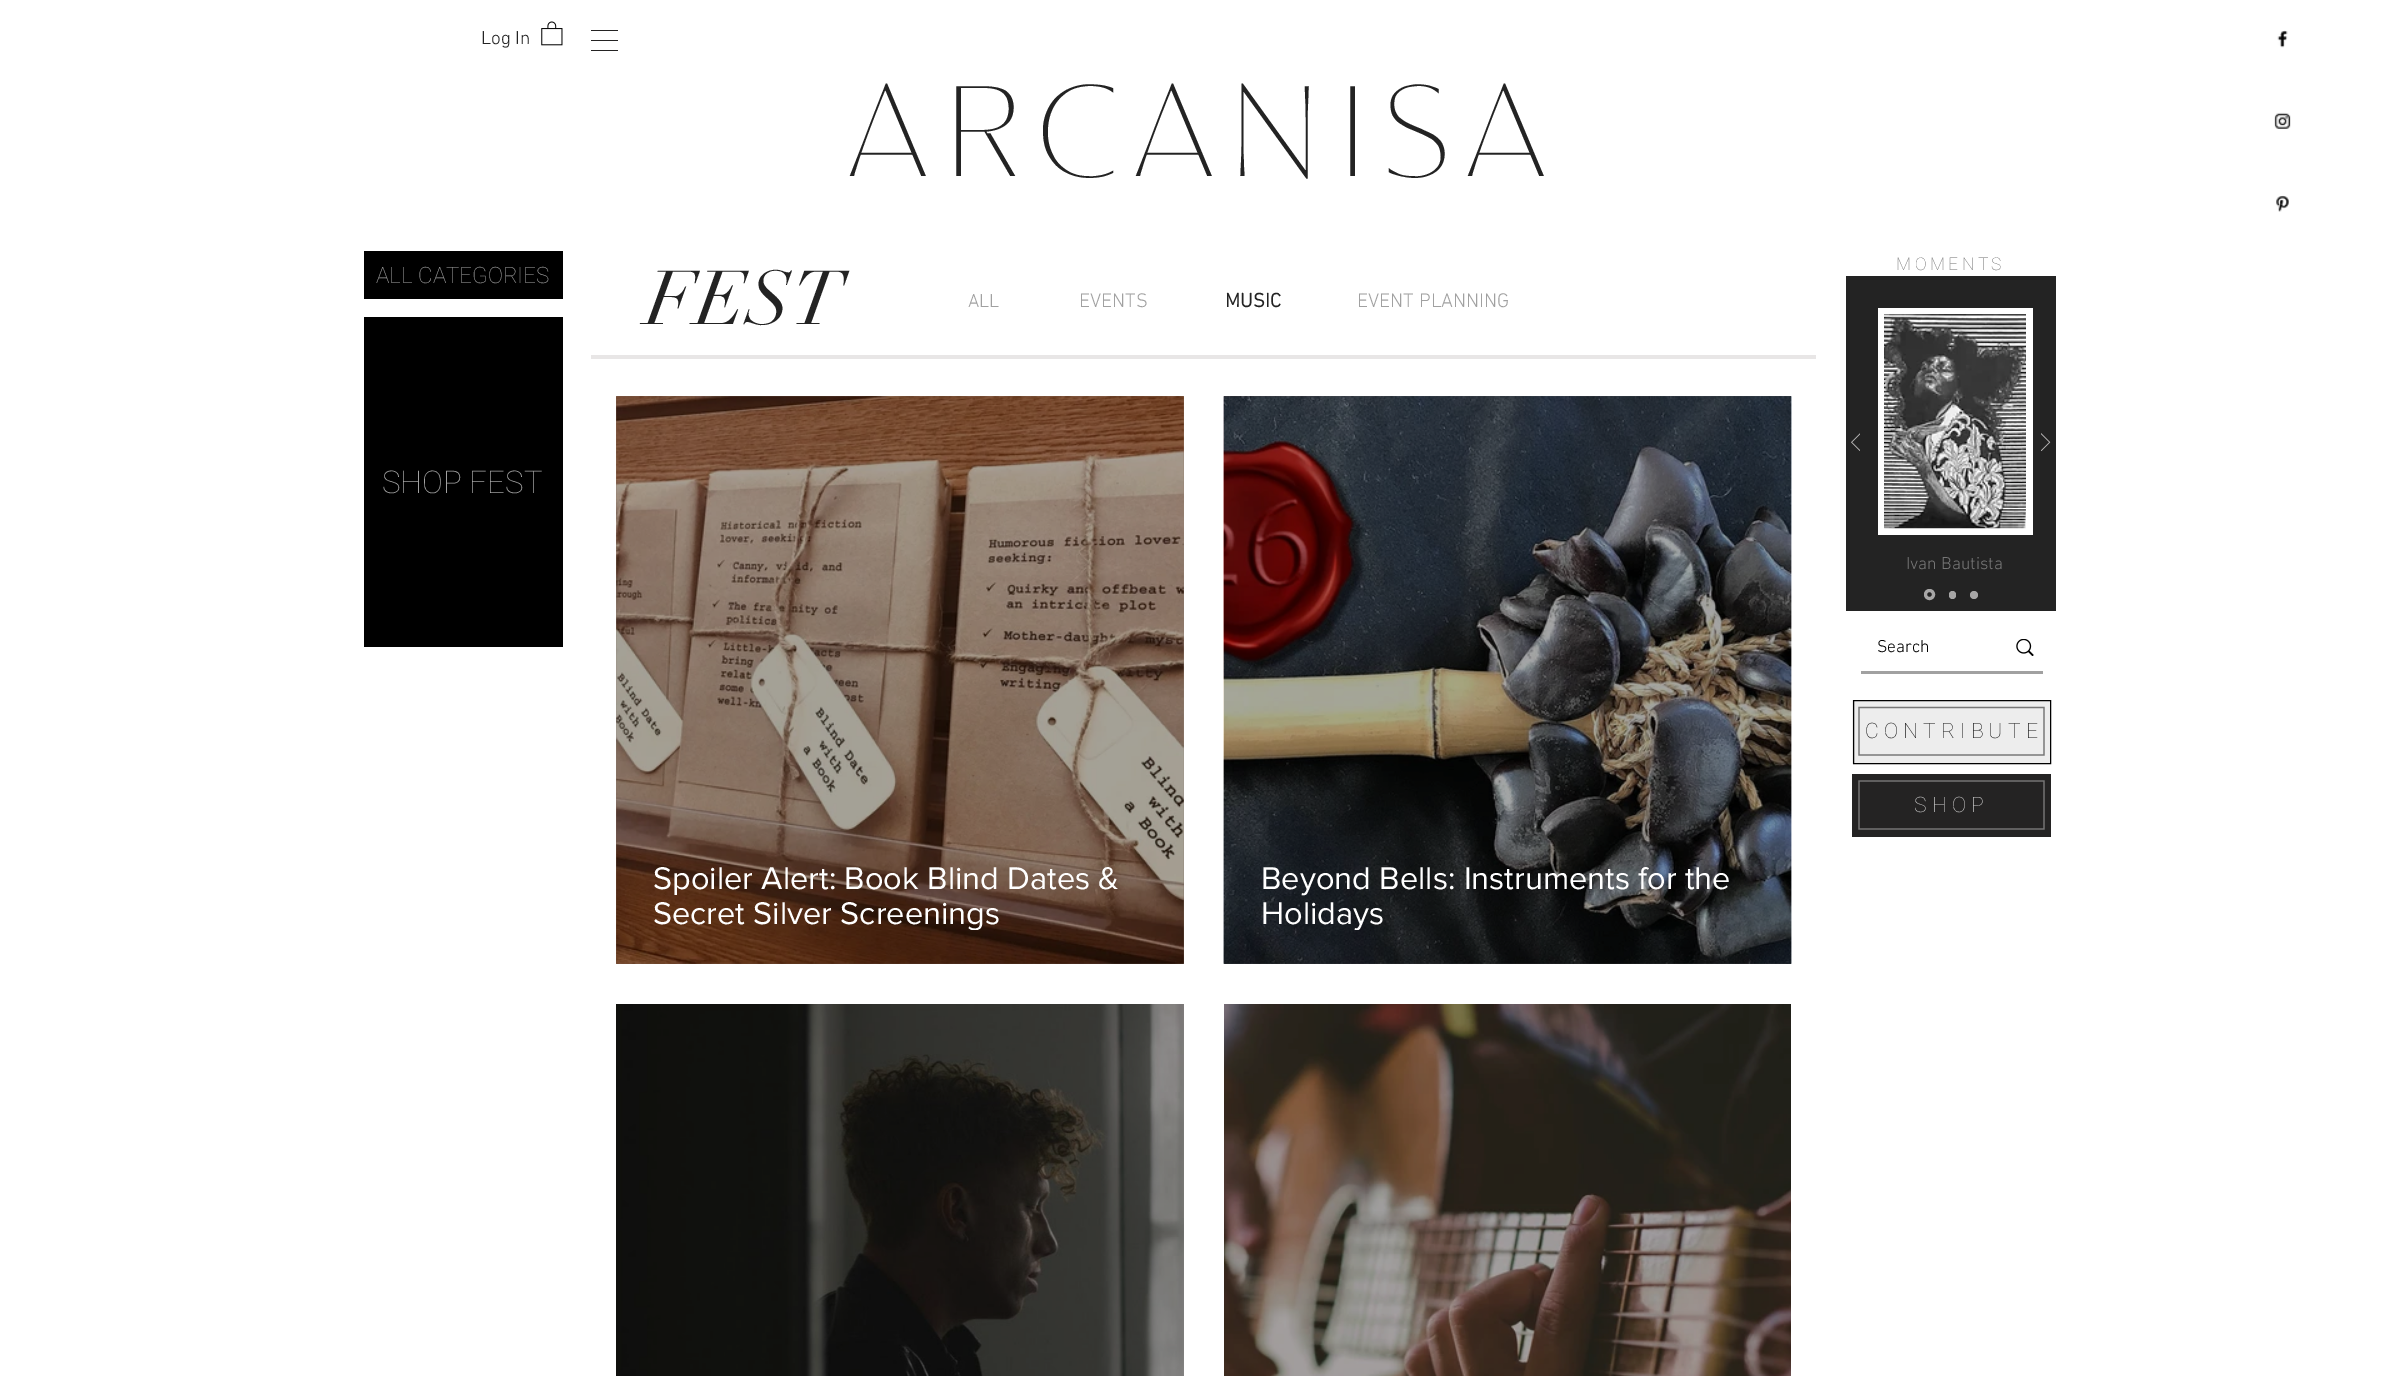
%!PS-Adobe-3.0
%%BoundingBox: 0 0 2406 1376
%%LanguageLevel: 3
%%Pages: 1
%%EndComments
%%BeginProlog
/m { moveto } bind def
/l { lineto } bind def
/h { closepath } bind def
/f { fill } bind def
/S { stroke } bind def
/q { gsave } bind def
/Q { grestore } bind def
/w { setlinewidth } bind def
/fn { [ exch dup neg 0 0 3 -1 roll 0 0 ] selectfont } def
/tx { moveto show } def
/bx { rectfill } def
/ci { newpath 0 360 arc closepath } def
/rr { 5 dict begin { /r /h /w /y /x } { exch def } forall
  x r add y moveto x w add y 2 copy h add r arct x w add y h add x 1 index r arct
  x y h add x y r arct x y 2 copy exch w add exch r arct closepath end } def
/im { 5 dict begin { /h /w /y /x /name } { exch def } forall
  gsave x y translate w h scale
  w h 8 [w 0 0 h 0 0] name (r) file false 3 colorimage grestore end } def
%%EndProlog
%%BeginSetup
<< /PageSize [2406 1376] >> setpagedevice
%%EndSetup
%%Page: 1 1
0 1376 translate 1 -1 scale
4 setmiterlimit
1 setgray
0 0 2406 1376 bx
(image0.raw) 541 21 22 25 im
0.141 0.137 0.137 setrgbcolor
591 30 27 1 bx
591 40 27 1 bx
591 50 27 1 bx
/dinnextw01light-Light 19 fn
0.137 setgray
(Log In) 481 44 tx
(image1.raw) 2277 30 11 18 im
(image2.raw) 2274 112 17 17 im
(image3.raw) 2276 195 13 17 im
/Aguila-Thin 132.5 fn
846 176 m 13.25 0 (ARCANISA) ashow
/Roboto-Thin 17.5 fn
0.463 setgray
1896 270 m 3.5 0 (MOMENTS) ashow
0 setgray
364 251 199 48 bx
/Roboto-Thin 22.5 fn
0.631 setgray
(ALL CATEGORIES) 376 283 tx
/didot-Regular 75 fn
0.137 setgray
(FEST) 646 324 tx
/dinnextw01light-Light 19 fn
0.631 setgray
(ALL) 968 307 tx
/dinnextw01light-Light 20 fn
(EVENTS) 1079 307 tx
/dinnextw01light-Bold 20 fn
0.137 setgray
(MUSIC) 1225 307 tx
/dinnextw01light-Light 20 fn
0.631 setgray
(EVENT PLANNING) 1357 307 tx
0.91 0.902 0.902 setrgbcolor
591 355 1225 4 bx
0 setgray
364 317 199 330 bx
/Roboto-Thin 31.25 fn
0.631 setgray
(SHOP FEST) 382 493 tx
0.137 setgray
1846 276 210 335 bx
(image4.raw) 1851 433 9 18 im
(image5.raw) 2041 433 10 18 im
1 setgray
1878 308 155 227 bx
(image6.raw) 1884 314 142 215 im
/dinnextw01light-Light 17.5 fn
0.463 setgray
(Ivan Bautista) 1906 569 tx
0.655 0.651 0.651 setrgbcolor
3 w
1929.5 594.5 4 ci S
1949 591 7 8 3.5 rr f
1974 595 4 ci f
0.631 setgray
1861 671 182 3 bx
0 setgray
(Search) 1877 652 tx
(image7.raw) 2016 639 18 17 im
0.929 setgray
1852 700 198 64 bx
0.463 setgray
1.2 w
2044 707.5 m 2044 755 l 1859 755 l 1859 707.5 l h S
0 setgray
1 w
1853.5 700.5 197 63 rectstroke
/Roboto-Thin 21.25 fn
0.137 setgray
(C O N T R I B U T E) 1865 738 tx
0.141 0.137 0.137 setrgbcolor
1852 774 199 63 bx
0.463 setgray
1.2 w
2044 781 m 2044 829 l 1859 829 l 1859 781 l h S
0.78 setgray
(S H O P) 1914 812 tx
(image8.raw) 616 396 568 568 im
(image9.raw) 616 396 568 568 im
/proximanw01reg-Regular 32.5 fn
1 setgray
(Spoiler Alert: Book Blind Dates &) 653 889 tx
q
654 860 492 70 rectclip
(Secret Silver Screenings) 653 924 tx
Q
(image10.raw) 1223 396 569 568 im
(image11.raw) 1223 396 569 568 im
(Beyond Bells: Instruments for the) 1261 889 tx
q
1261 860 493 70 rectclip
(Holidays) 1261 924 tx
Q
(image12.raw) 616 1004 568 372 im
(image13.raw) 1183 1004 1 372 im
(image14.raw) 1224 1004 567 372 im
showpage
%%EOF
